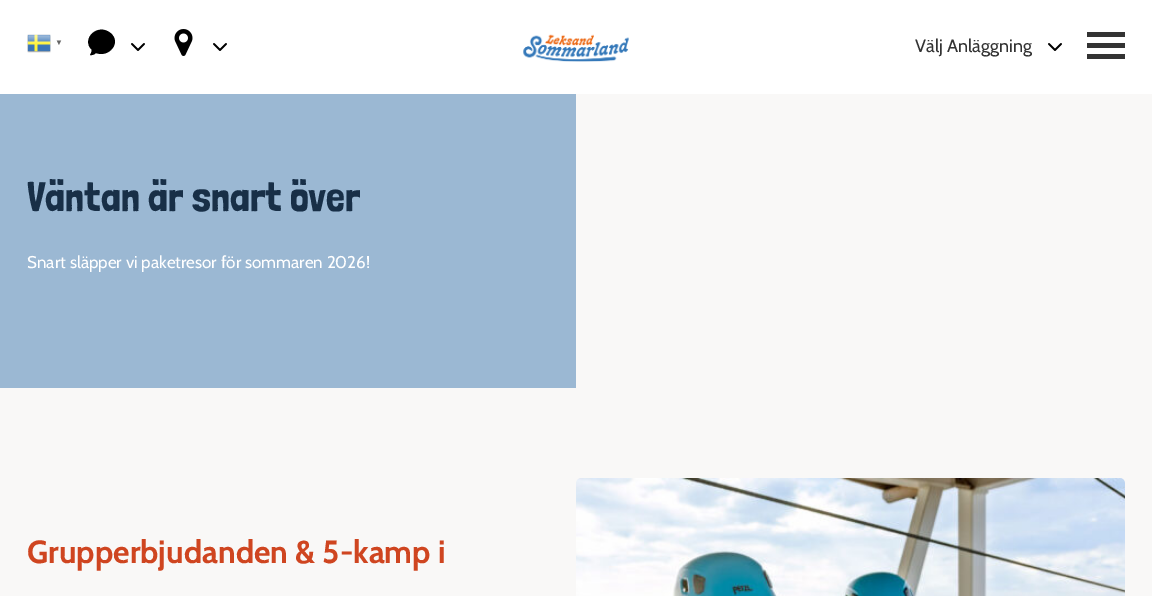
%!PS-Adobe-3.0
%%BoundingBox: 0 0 1152 596
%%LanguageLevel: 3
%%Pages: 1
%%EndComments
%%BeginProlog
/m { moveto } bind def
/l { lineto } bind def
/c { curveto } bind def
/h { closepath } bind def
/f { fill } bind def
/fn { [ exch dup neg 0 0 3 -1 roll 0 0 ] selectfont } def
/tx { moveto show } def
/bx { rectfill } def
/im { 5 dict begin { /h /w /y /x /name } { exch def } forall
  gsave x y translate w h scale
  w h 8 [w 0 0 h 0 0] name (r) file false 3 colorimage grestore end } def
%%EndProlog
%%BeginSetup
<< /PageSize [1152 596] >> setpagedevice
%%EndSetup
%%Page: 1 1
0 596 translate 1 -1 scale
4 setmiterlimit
0.976 0.973 0.969 setrgbcolor
0 0 1152 596 bx
1 setgray
0 0 1152 94 bx
(image0.raw) 27 34 24 19 im
/LiberationSans-Bold 8 fn
0.4 setgray
(▼) 55 45 tx
0 setgray
110.5 33 m 97.5 22.5 81 39 91.5 49.5 c 92.5 53.5 87.5 56 92 55 c 94 54.5 l 96 53 l 109 58 122 42.5 110.5 33 c h f
(image1.raw) 131 43 14 8 im
(image2.raw) 174 29 19 27 im
(image1.raw) 213 43 14 8 im
(image3.raw) 523 34 106 28 im
/Cabin-Regular 18 fn
0.2 setgray
(Välj Anläggning) 915 52 tx
(image1.raw) 1048 43 14 8 im
1087 32 38 5 bx
1087 43 38 5 bx
1087 54 38 5 bx
0.608 0.722 0.827 setrgbcolor
0 94 576 294 bx
/LondrinaSolid-Regular 42 fn
0.094 0.184 0.278 setrgbcolor
(Väntan är snart över) 27 211 tx
/Cabin-Regular 17 fn
1 setgray
(Snart släpper vi paketresor för sommaren 2026!) 27 268 tx
/Cabin-Bold 32 fn
0.812 0.271 0.125 setrgbcolor
(Grupperbjudanden & 5-kamp i) 27 563 tx
(image4.raw) 576 478 549 118 im
showpage
%%EOF
